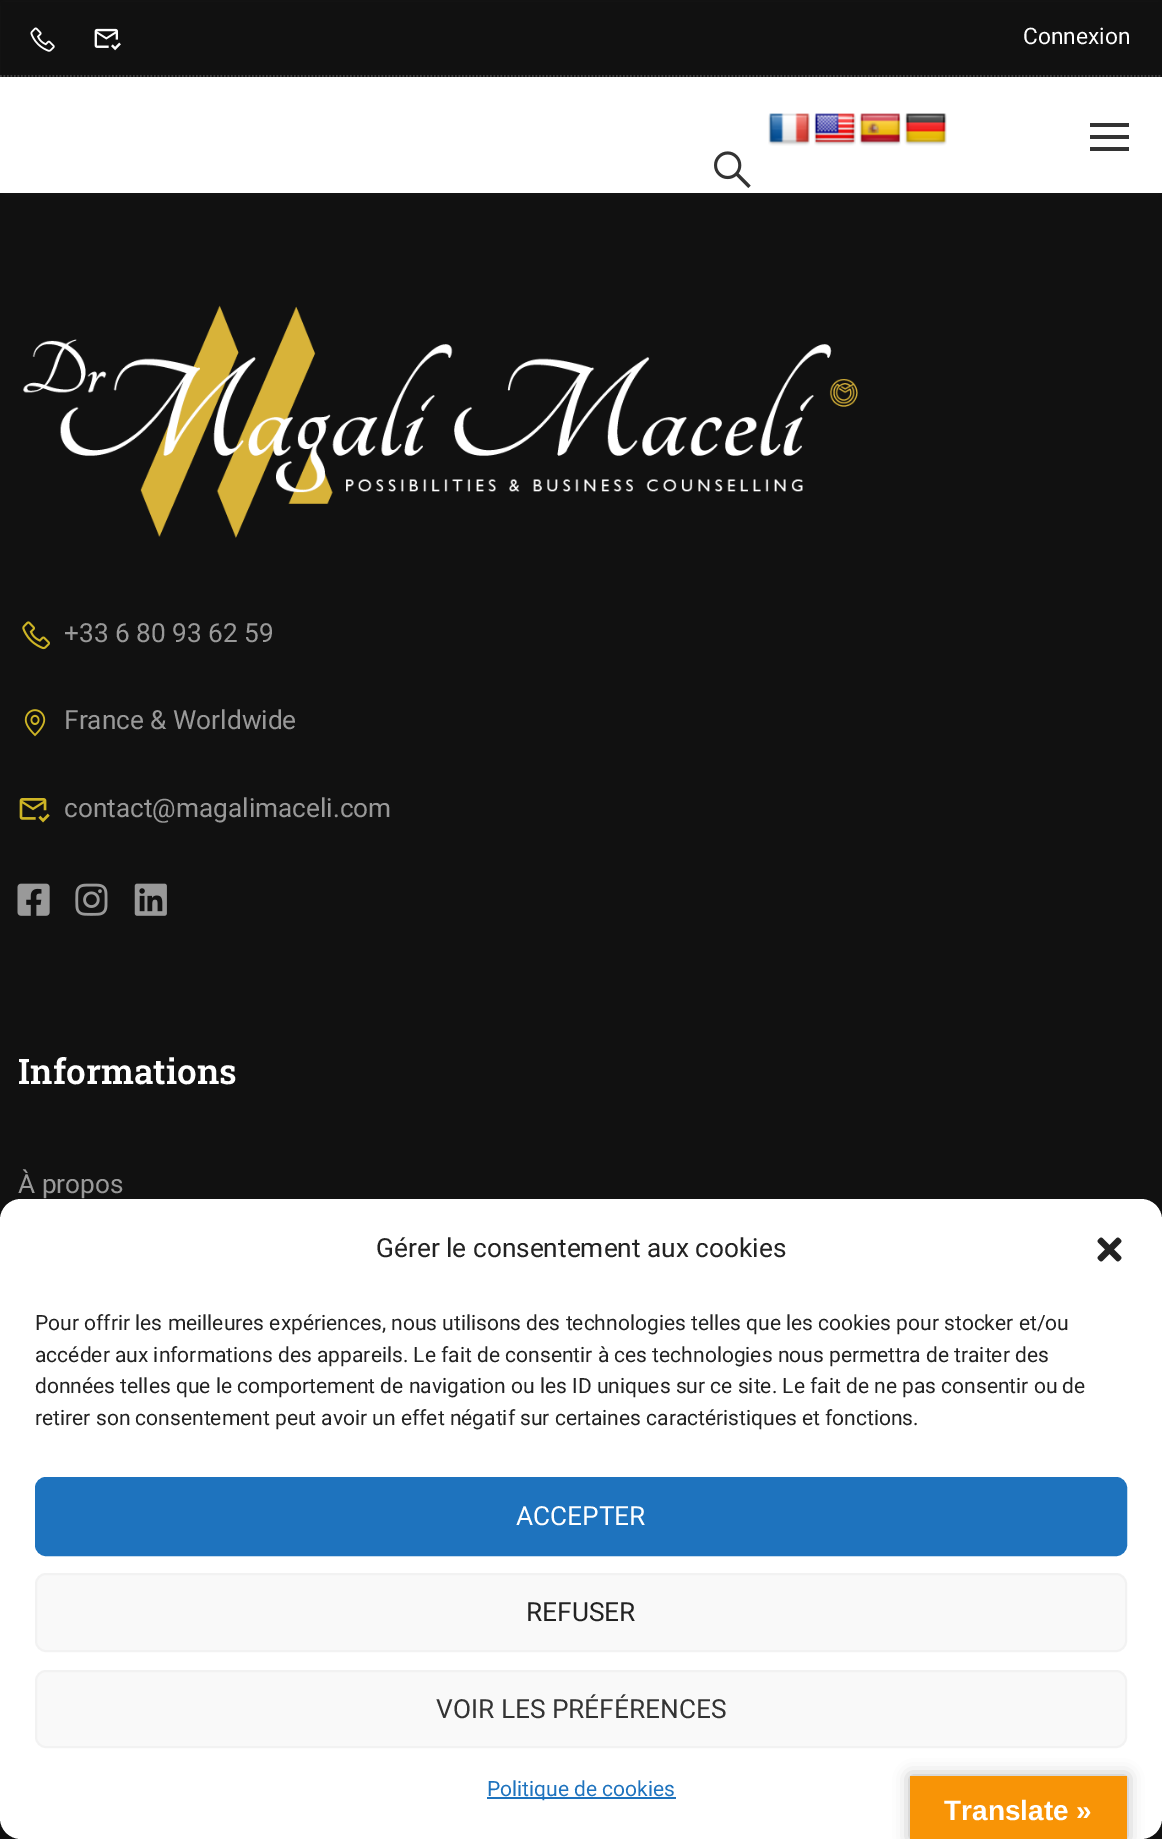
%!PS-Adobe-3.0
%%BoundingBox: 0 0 1162 1839
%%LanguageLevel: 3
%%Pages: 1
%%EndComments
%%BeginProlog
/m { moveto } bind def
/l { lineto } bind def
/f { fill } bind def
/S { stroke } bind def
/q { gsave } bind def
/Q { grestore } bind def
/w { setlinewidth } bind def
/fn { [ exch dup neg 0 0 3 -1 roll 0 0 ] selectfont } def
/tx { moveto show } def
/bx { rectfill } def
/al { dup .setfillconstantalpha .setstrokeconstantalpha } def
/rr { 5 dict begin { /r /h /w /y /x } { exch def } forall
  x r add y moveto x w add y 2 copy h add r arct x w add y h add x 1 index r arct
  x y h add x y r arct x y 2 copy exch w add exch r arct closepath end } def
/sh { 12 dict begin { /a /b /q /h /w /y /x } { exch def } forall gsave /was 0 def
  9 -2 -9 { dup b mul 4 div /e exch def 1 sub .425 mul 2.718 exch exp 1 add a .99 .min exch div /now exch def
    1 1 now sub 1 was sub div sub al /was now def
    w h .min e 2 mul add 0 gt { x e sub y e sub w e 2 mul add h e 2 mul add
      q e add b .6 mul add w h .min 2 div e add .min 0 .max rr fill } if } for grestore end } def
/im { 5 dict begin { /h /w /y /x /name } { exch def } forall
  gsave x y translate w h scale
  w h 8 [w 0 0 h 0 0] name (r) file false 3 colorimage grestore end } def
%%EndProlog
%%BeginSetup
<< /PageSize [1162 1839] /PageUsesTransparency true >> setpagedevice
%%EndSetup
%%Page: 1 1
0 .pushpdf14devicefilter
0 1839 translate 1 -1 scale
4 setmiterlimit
0.067 setgray
0 0 1162 1839 bx
0.165 setgray
4 5 1155 186 0 4.5 0.4 sh
1 setgray
0 77 1162 116 bx
0.067 setgray
1 2 1161 75 bx
0.255 setgray
1.8 w
[1.75 1.75] 0 setdash
0 76 m 1162 76 l S
(image0.raw) 30 27 25 25 im
(image1.raw) 94 28 27 23 im
/Roboto-Regular 22.75 fn
1 setgray
(Connexion) 1023 44 tx
(image2.raw) 768 113 42 33 im
(image3.raw) 814 113 42 33 im
(image4.raw) 859 113 42 33 im
(image5.raw) 904 113 43 33 im
(image6.raw) 714 151 37 37 im
0.2 setgray
1090 123 39 4 bx
1090 135 39 4 bx
1090 147 39 4 bx
(image7.raw) 23 305 835 233 im
(image8.raw) 22 621 28 29 im
/Roboto-Regular 26.25 fn
0.6 setgray
(+33 6 80 93 62 59) 64 642 tx
(image9.raw) 24 709 22 28 im
(France & Worldwide) 64 729 tx
(image10.raw) 19 798 31 25 im
(contact@magalimaceli.com) 64 817 tx
(image11.raw) 17 883 33 33 im
(image12.raw) 75 883 33 33 im
(image13.raw) 134 883 33 33 im
/RobotoSlab-SemiBold 35 fn
1 setgray
(Informations) 18 1084 tx
/Roboto-Regular 26.25 fn
0.6 setgray
(À propos) 18 1193 tx
1 setgray
0 1199 1162 640 21 rr f
0.133 setgray
(Gérer le consentement aux cookies) 376 1257 tx
(image14.raw) 1097 1237 25 25 im
/Roboto-Regular 21 fn
(Pour offrir les meilleures expériences, nous utilisons des technologies telles que les cookies pour stocker et/ou) 35 1330 tx
(accéder aux informations des appareils. Le fait de consentir à ces technologies nous permettra de traiter des) 35 1362 tx
(données telles que le comportement de navigation ou les ID uniques sur ce site. Le fait de ne pas consentir ou de) 35 1393 tx
(retirer son consentement peut avoir un effet négatif sur certaines caractéristiques et fonctions.) 35 1425 tx
0.118 0.451 0.745 setrgbcolor
36 1478 1090 77 10 rr q f Q
2 w
[] 0 setdash
S
/Roboto-Regular 26.25 fn
1 setgray
(ACCEPTER) 516 1525 tx
0.976 setgray
36 1574 1090 77 10 rr q f Q
0.949 setgray
S
0.133 setgray
(REFUSER) 526 1621 tx
0.976 setgray
36 1671 1090 76 10 rr q f Q
0.949 setgray
S
0.2 setgray
(VOIR LES PRÉFÉRENCES) 436 1718 tx
0.118 0.451 0.745 setrgbcolor
487 1797 189 2 bx
/Roboto-Regular 21 fn
(Politique de cookies) 487 1796 tx
0 setgray
910 1776 217 63 0 8 0.3 sh
0.973 0.58 0.024 setrgbcolor
910 1776 217 63 bx
/LiberationSans-Bold 28 fn
1 setgray
(Translate ») 944 1820 tx
.poppdf14devicefilter showpage
%%EOF
